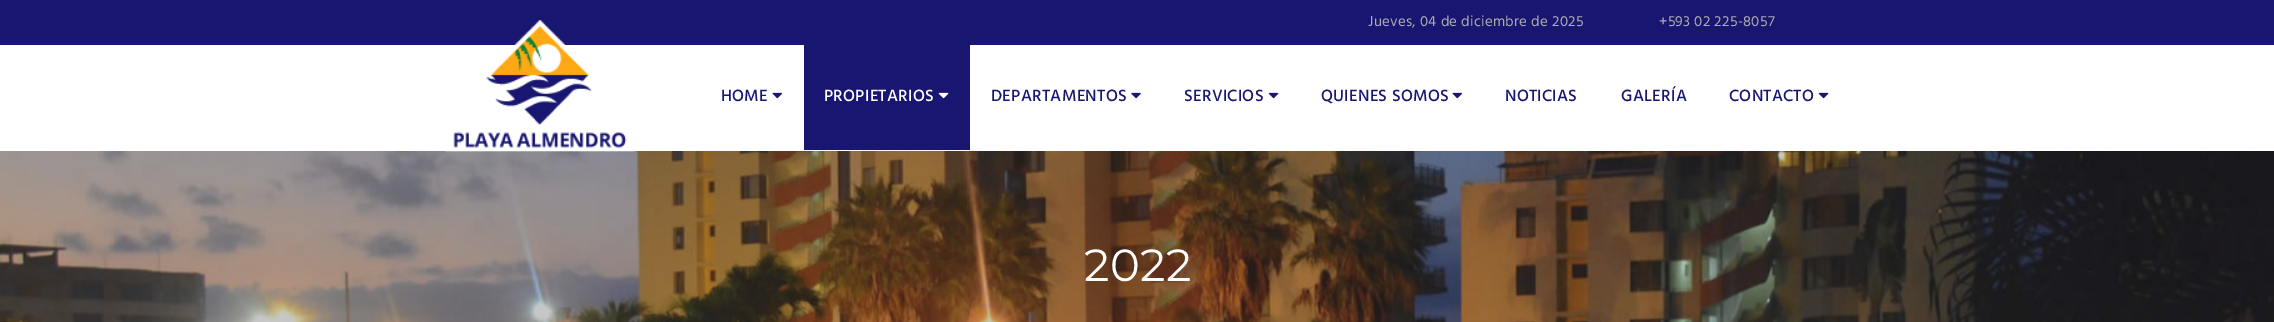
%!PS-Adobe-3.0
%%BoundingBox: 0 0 2274 322
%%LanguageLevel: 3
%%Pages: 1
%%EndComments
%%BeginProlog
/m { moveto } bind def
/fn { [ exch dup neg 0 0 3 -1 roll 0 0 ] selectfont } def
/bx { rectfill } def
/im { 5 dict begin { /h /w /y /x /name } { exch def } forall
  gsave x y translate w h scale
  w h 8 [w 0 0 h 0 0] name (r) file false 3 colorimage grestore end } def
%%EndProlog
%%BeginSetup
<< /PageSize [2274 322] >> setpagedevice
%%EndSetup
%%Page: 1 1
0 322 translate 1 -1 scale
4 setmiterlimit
1 setgray
0 0 2274 322 bx
0.094 0.086 0.439 setrgbcolor
0 0 2274 45 bx
/Hind-Regular 15 fn
0.675 setgray
1368 26 m 0.25 0 (Jueves, 04 de diciembre de 2025) ashow
1659 26 m 0.25 0 (+593 02 225-8057) ashow
(image5.raw) 0 151 2274 171 im
(image0.raw) 445 20 190 132 im
/Hind-Medium 16.75 fn
0.094 0.086 0.439 setrgbcolor
721 101 m 0.25 0 (HOME) ashow
(image1.raw) 772 92 11 7 im
804 45 166 105 bx
1 setgray
824 101 m 0.25 0 (PROPIETARIOS) ashow
(image2.raw) 938 92 11 7 im
0.094 0.086 0.439 setrgbcolor
991 101 m 0.25 0 (DEPARTAMENTOS) ashow
(image3.raw) 1131 92 10 7 im
1184 101 m 0.25 0 (SERVICIOS) ashow
(image4.raw) 1268 92 11 7 im
1321 101 m 0.25 0 (QUIENES SOMOS) ashow
(image1.raw) 1452 92 11 7 im
1505 101 m 0.25 0 (NOTICIAS) ashow
1621 101 m 0.25 0 (GALERÍA) ashow
1729 101 m 0.25 0 (CONTACTO) ashow
(image4.raw) 1818 92 11 7 im
/Montserrat-Regular 45 fn
1 setgray
1084 281 m 0.25 0 (2022) ashow
showpage
%%EOF
